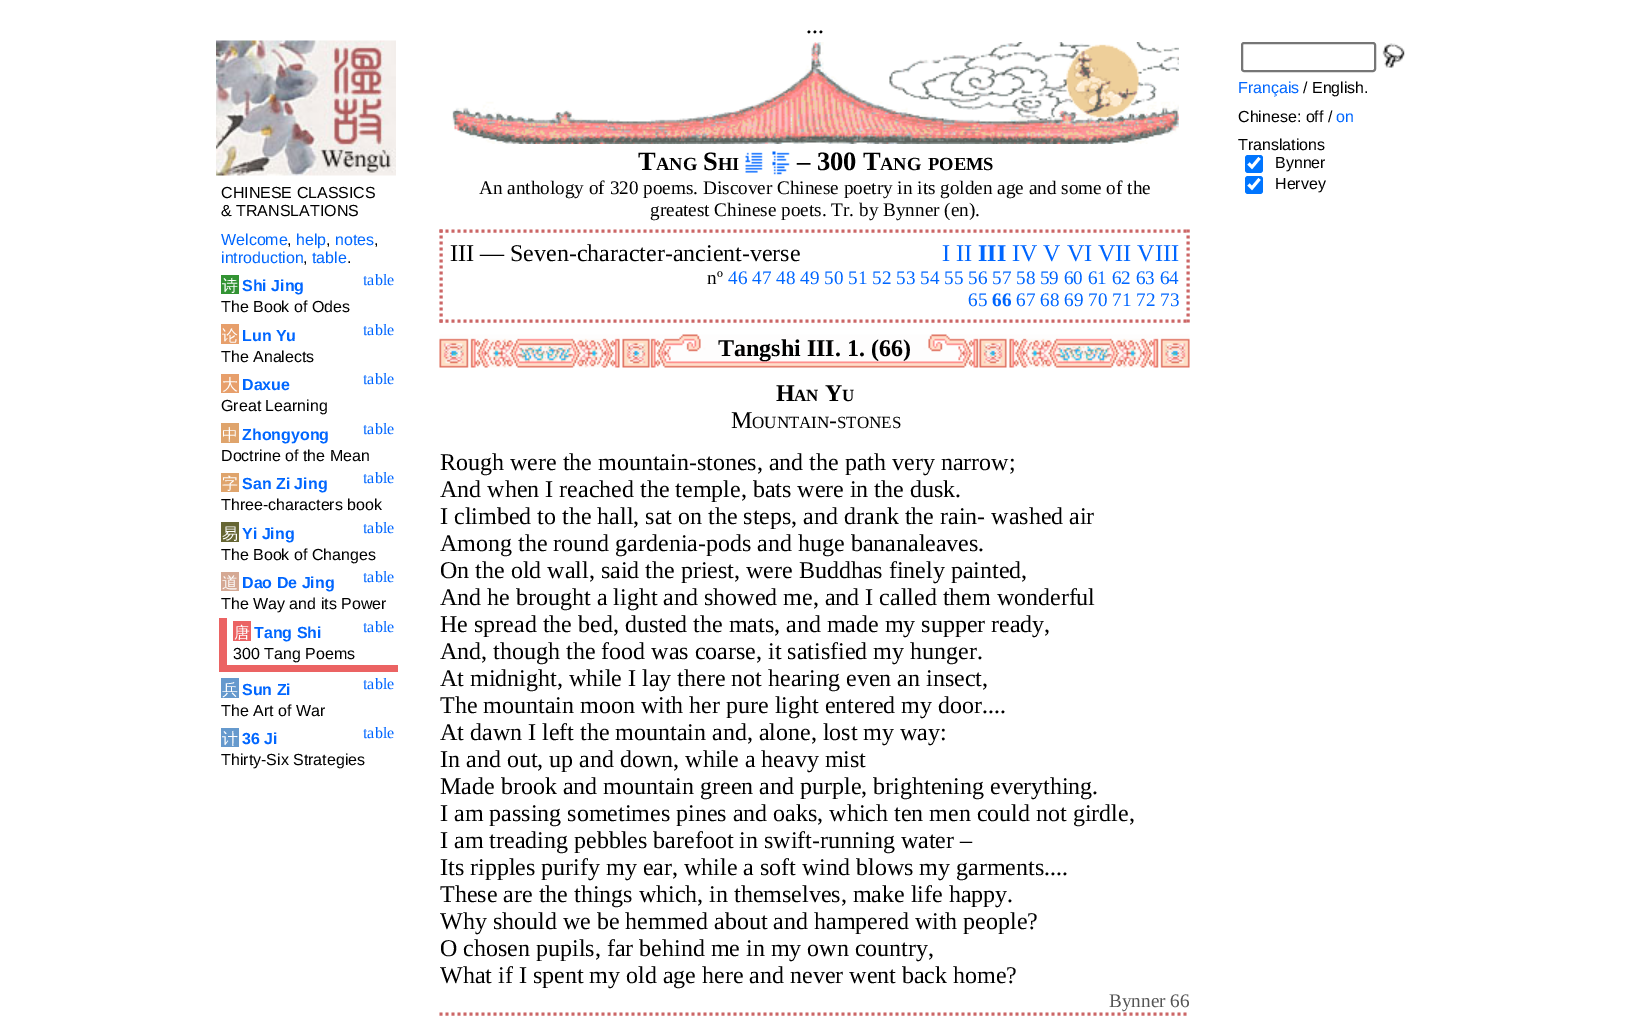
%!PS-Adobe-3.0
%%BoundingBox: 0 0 1628 1030
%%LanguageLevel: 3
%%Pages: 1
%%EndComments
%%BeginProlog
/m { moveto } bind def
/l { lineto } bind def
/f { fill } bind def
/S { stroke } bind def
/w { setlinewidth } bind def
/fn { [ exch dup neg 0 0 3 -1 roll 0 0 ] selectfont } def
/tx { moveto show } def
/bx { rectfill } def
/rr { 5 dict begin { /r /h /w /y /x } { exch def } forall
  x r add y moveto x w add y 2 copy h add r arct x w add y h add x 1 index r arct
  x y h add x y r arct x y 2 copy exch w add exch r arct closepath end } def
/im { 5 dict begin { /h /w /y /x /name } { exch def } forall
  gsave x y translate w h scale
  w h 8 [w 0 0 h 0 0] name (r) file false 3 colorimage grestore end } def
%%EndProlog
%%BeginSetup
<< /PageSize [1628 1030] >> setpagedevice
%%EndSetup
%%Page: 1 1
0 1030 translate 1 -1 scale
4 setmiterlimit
1 setgray
0 0 1628 1030 bx
/LiberationSerif-Regular 24 fn
0 setgray
(...) 806 33 tx
0.463 setgray
2 w
1242 43 133 28 2 rr S
(image0.raw) 1382 43 23 25 im
/LiberationSans-Regular 16 fn
0 0.4 1 setrgbcolor
(Français) 1238 93 tx
0 setgray
(/ English.) 1303 93 tx
(Chinese: off /) 1238 122 tx
0 0.4 1 setrgbcolor
(on) 1336 122 tx
0 setgray
(Translations) 1238 150 tx
0 0.459 1 setrgbcolor
1245 155 18 18 3 rr f
1 setgray
2.9 w
1248.5 163.5 m 1252 167 l 1259.5 158 l S
0 setgray
(Bynner) 1275 168 tx
0 0.459 1 setrgbcolor
1245 176 18 18 3 rr f
1 setgray
1248.5 184.5 m 1252 188 l 1259.5 179 l S
0 setgray
(Hervey) 1275 189 tx
(image1.raw) 216 40 180 136 im
(CHINESE CLASSICS) 221 198 tx
(& TRANSLATIONS) 221 216 tx
0 0.4 1 setrgbcolor
(Welcome) 221 245 tx
0 setgray
(,) 287 245 tx
0 0.4 1 setrgbcolor
(help) 296 245 tx
0 setgray
(,) 326 245 tx
0 0.4 1 setrgbcolor
(notes) 335 245 tx
0 setgray
(,) 374 245 tx
0 0.4 1 setrgbcolor
(introduction) 221 263 tx
0 setgray
(,) 303 263 tx
0 0.4 1 setrgbcolor
(table) 312 263 tx
0 setgray
(.) 347 263 tx
0.196 0.576 0.2 setrgbcolor
221 275 18 19 bx
/WenQuanYiZenHei-Medium 16 fn
1 setgray
(诗) 222 291 tx
/LiberationSans-Bold 16 fn
0 0.4 1 setrgbcolor
(Shi Jing) 242 291 tx
/LiberationSans-Regular 16 fn
0 setgray
(The Book of Odes) 221 312 tx
/LiberationSerif-Regular 16 fn
0 0.4 1 setrgbcolor
(table) 363 285 tx
0.906 0.624 0.42 setrgbcolor
221 324 18 20 bx
/WenQuanYiZenHei-Medium 16 fn
1 setgray
(论) 222 341 tx
/LiberationSans-Bold 16 fn
0 0.4 1 setrgbcolor
(Lun Yu) 242 341 tx
/LiberationSans-Regular 16 fn
0 setgray
(The Analects) 221 362 tx
/LiberationSerif-Regular 16 fn
0 0.4 1 setrgbcolor
(table) 363 335 tx
0.906 0.624 0.42 setrgbcolor
221 374 18 19 bx
/WenQuanYiZenHei-Medium 16 fn
1 setgray
(大) 222 390 tx
/LiberationSans-Bold 16 fn
0 0.4 1 setrgbcolor
(Daxue) 242 390 tx
/LiberationSans-Regular 16 fn
0 setgray
(Great Learning) 221 411 tx
/LiberationSerif-Regular 16 fn
0 0.4 1 setrgbcolor
(table) 363 384 tx
0.875 0.643 0.424 setrgbcolor
221 423 18 20 bx
/WenQuanYiZenHei-Medium 16 fn
1 setgray
(中) 222 440 tx
/LiberationSans-Bold 16 fn
0 0.4 1 setrgbcolor
(Zhongyong) 242 440 tx
/LiberationSans-Regular 16 fn
0 setgray
(Doctrine of the Mean) 221 461 tx
/LiberationSerif-Regular 16 fn
0 0.4 1 setrgbcolor
(table) 363 434 tx
(table) 363 483 tx
0.875 0.643 0.424 setrgbcolor
221 473 18 19 bx
/WenQuanYiZenHei-Medium 16 fn
1 setgray
(字) 222 489 tx
/LiberationSans-Bold 16 fn
0 0.4 1 setrgbcolor
(San Zi Jing) 242 489 tx
/LiberationSans-Regular 16 fn
0 setgray
(Three-characters book) 221 510 tx
0.4 0.4 0.2 setrgbcolor
221 522 18 20 bx
/WenQuanYiZenHei-Medium 16 fn
1 setgray
(易) 222 539 tx
/LiberationSans-Bold 16 fn
0 0.4 1 setrgbcolor
(Yi Jing) 242 539 tx
/LiberationSans-Regular 16 fn
0 setgray
(The Book of Changes) 221 560 tx
/LiberationSerif-Regular 16 fn
0 0.4 1 setrgbcolor
(table) 363 533 tx
(table) 363 582 tx
0.835 0.663 0.58 setrgbcolor
221 572 18 19 bx
/WenQuanYiZenHei-Medium 16 fn
1 setgray
(道) 222 588 tx
/LiberationSans-Bold 16 fn
0 0.4 1 setrgbcolor
(Dao De Jing) 242 588 tx
/LiberationSans-Regular 16 fn
0 setgray
(The Way and its Power) 221 609 tx
0.922 0.388 0.388 setrgbcolor
219 665 179 7 bx
219 618 8 54 bx
233 621 18 20 bx
/WenQuanYiZenHei-Medium 16 fn
1 setgray
(唐) 234 638 tx
/LiberationSans-Bold 16 fn
0 0.4 1 setrgbcolor
(Tang Shi) 254 638 tx
/LiberationSans-Regular 16 fn
0 setgray
(300 Tang Poems) 233 659 tx
/LiberationSerif-Regular 16 fn
0 0.4 1 setrgbcolor
(table) 363 632 tx
0.396 0.6 0.804 setrgbcolor
221 678 18 20 bx
/WenQuanYiZenHei-Medium 16 fn
1 setgray
(兵) 222 695 tx
/LiberationSans-Bold 16 fn
0 0.4 1 setrgbcolor
(Sun Zi) 242 695 tx
/LiberationSans-Regular 16 fn
0 setgray
(The Art of War) 221 716 tx
/LiberationSerif-Regular 16 fn
0 0.4 1 setrgbcolor
(table) 363 689 tx
0.396 0.6 0.804 setrgbcolor
221 728 18 19 bx
/WenQuanYiZenHei-Medium 16 fn
1 setgray
(计) 222 744 tx
/LiberationSans-Bold 16 fn
0 0.4 1 setrgbcolor
(36 Ji) 242 744 tx
/LiberationSans-Regular 16 fn
0 setgray
(Thirty-Six Strategies) 221 765 tx
/LiberationSerif-Regular 16 fn
0 0.4 1 setrgbcolor
(table) 363 738 tx
(image2.raw) 452 42 727 102 im
/LiberationSerif-Bold 26.5 fn
0 setgray
(T) 638 170 tx
/LiberationSerif-Bold 18.5 fn
(ANG) 656 170 tx
/LiberationSerif-Bold 26.5 fn
(S) 703 170 tx
/LiberationSerif-Bold 18.5 fn
(HI) 718 170 tx
(image3.raw) 745 152 18 21 im
(image4.raw) 772 151 18 24 im
/LiberationSerif-Bold 26.5 fn
(– 300 T) 797 170 tx
/LiberationSerif-Bold 18.5 fn
(ANG) 880 170 tx
(POEMS) 928 170 tx
/LiberationSerif-Regular 19.2 fn
(An anthology of 320 poems. Discover Chinese poetry in its golden age and some of the) 479 194 tx
(greatest Chinese poets. Tr. by Bynner \(en\).) 650 216 tx
0.8 0.4 0.4 setrgbcolor
3 w
[3 3] 0 setdash
439.5 231 m 1189.5 231 l S
1188 229.5 m 1188 322.5 l S
439.5 321 m 1189.5 321 l S
441 229.5 m 441 322.5 l S
/LiberationSerif-Regular 24 fn
0 setgray
(III — Seven-character-ancient-verse) 450 261 tx
0 0.4 1 setrgbcolor
(I II) 942 261 tx
/LiberationSerif-Bold 24 fn
(III) 978 261 tx
/LiberationSerif-Regular 24 fn
(IV V VI VII VIII) 1012 261 tx
/LiberationSerif-Regular 19.2 fn
0 setgray
(nº) 707 284 tx
0 0.4 1 setrgbcolor
(46 47 48 49 50 51 52 53 54 55 56 57 58 59 60 61 62 63 64) 728 284 tx
(65) 968 306 tx
/LiberationSerif-Bold 19.2 fn
(66) 992 306 tx
/LiberationSerif-Regular 19.2 fn
(67 68 69 70 71 72 73) 1016 306 tx
(image5.raw) 439 334 751 34 im
/LiberationSerif-Bold 24 fn
0 setgray
(Tangshi III. 1. \(66\)) 718 356 tx
(H) 776 401 tx
/LiberationSerif-Bold 17 fn
(AN) 794 401 tx
/LiberationSerif-Bold 24 fn
(Y) 825 401 tx
/LiberationSerif-Bold 17 fn
(U) 842 401 tx
/LiberationSerif-Regular 24 fn
(M) 731 428 tx
/LiberationSerif-Regular 17 fn
(OUNTAIN) 752 428 tx
/LiberationSerif-Regular 24 fn
(-) 829 428 tx
/LiberationSerif-Regular 17 fn
(STONES) 837 428 tx
/LiberationSerif-Regular 24 fn
(Rough were the mountain-stones, and the path very narrow;) 440 470 tx
(And when I reached the temple, bats were in the dusk.) 440 497 tx
(I climbed to the hall, sat on the steps, and drank the rain- washed air) 440 524 tx
(Among the round gardenia-pods and huge bananaleaves.) 440 551 tx
(On the old wall, said the priest, were Buddhas finely painted,) 440 578 tx
(And he brought a light and showed me, and I called them wonderful) 440 605 tx
(He spread the bed, dusted the mats, and made my supper ready,) 440 632 tx
(And, though the food was coarse, it satisfied my hunger.) 440 659 tx
(At midnight, while I lay there not hearing even an insect,) 440 686 tx
(The mountain moon with her pure light entered my door....) 440 713 tx
(At dawn I left the mountain and, alone, lost my way:) 440 740 tx
(In and out, up and down, while a heavy mist) 440 767 tx
(Made brook and mountain green and purple, brightening everything.) 440 794 tx
(I am passing sometimes pines and oaks, which ten men could not girdle,) 440 821 tx
(I am treading pebbles barefoot in swift-running water –) 440 848 tx
(Its ripples purify my ear, while a soft wind blows my garments....) 440 875 tx
(These are the things which, in themselves, make life happy.) 440 902 tx
(Why should we be hemmed about and hampered with people?) 440 929 tx
(O chosen pupils, far behind me in my own country,) 440 956 tx
(What if I spent my old age here and never went back home?) 440 983 tx
0.8 0.4 0.4 setrgbcolor
439.5 1014 m 1189.5 1014 l S
/LiberationSerif-Regular 19.2 fn
0.333 setgray
(Bynner 66) 1109 1007 tx
showpage
%%EOF
